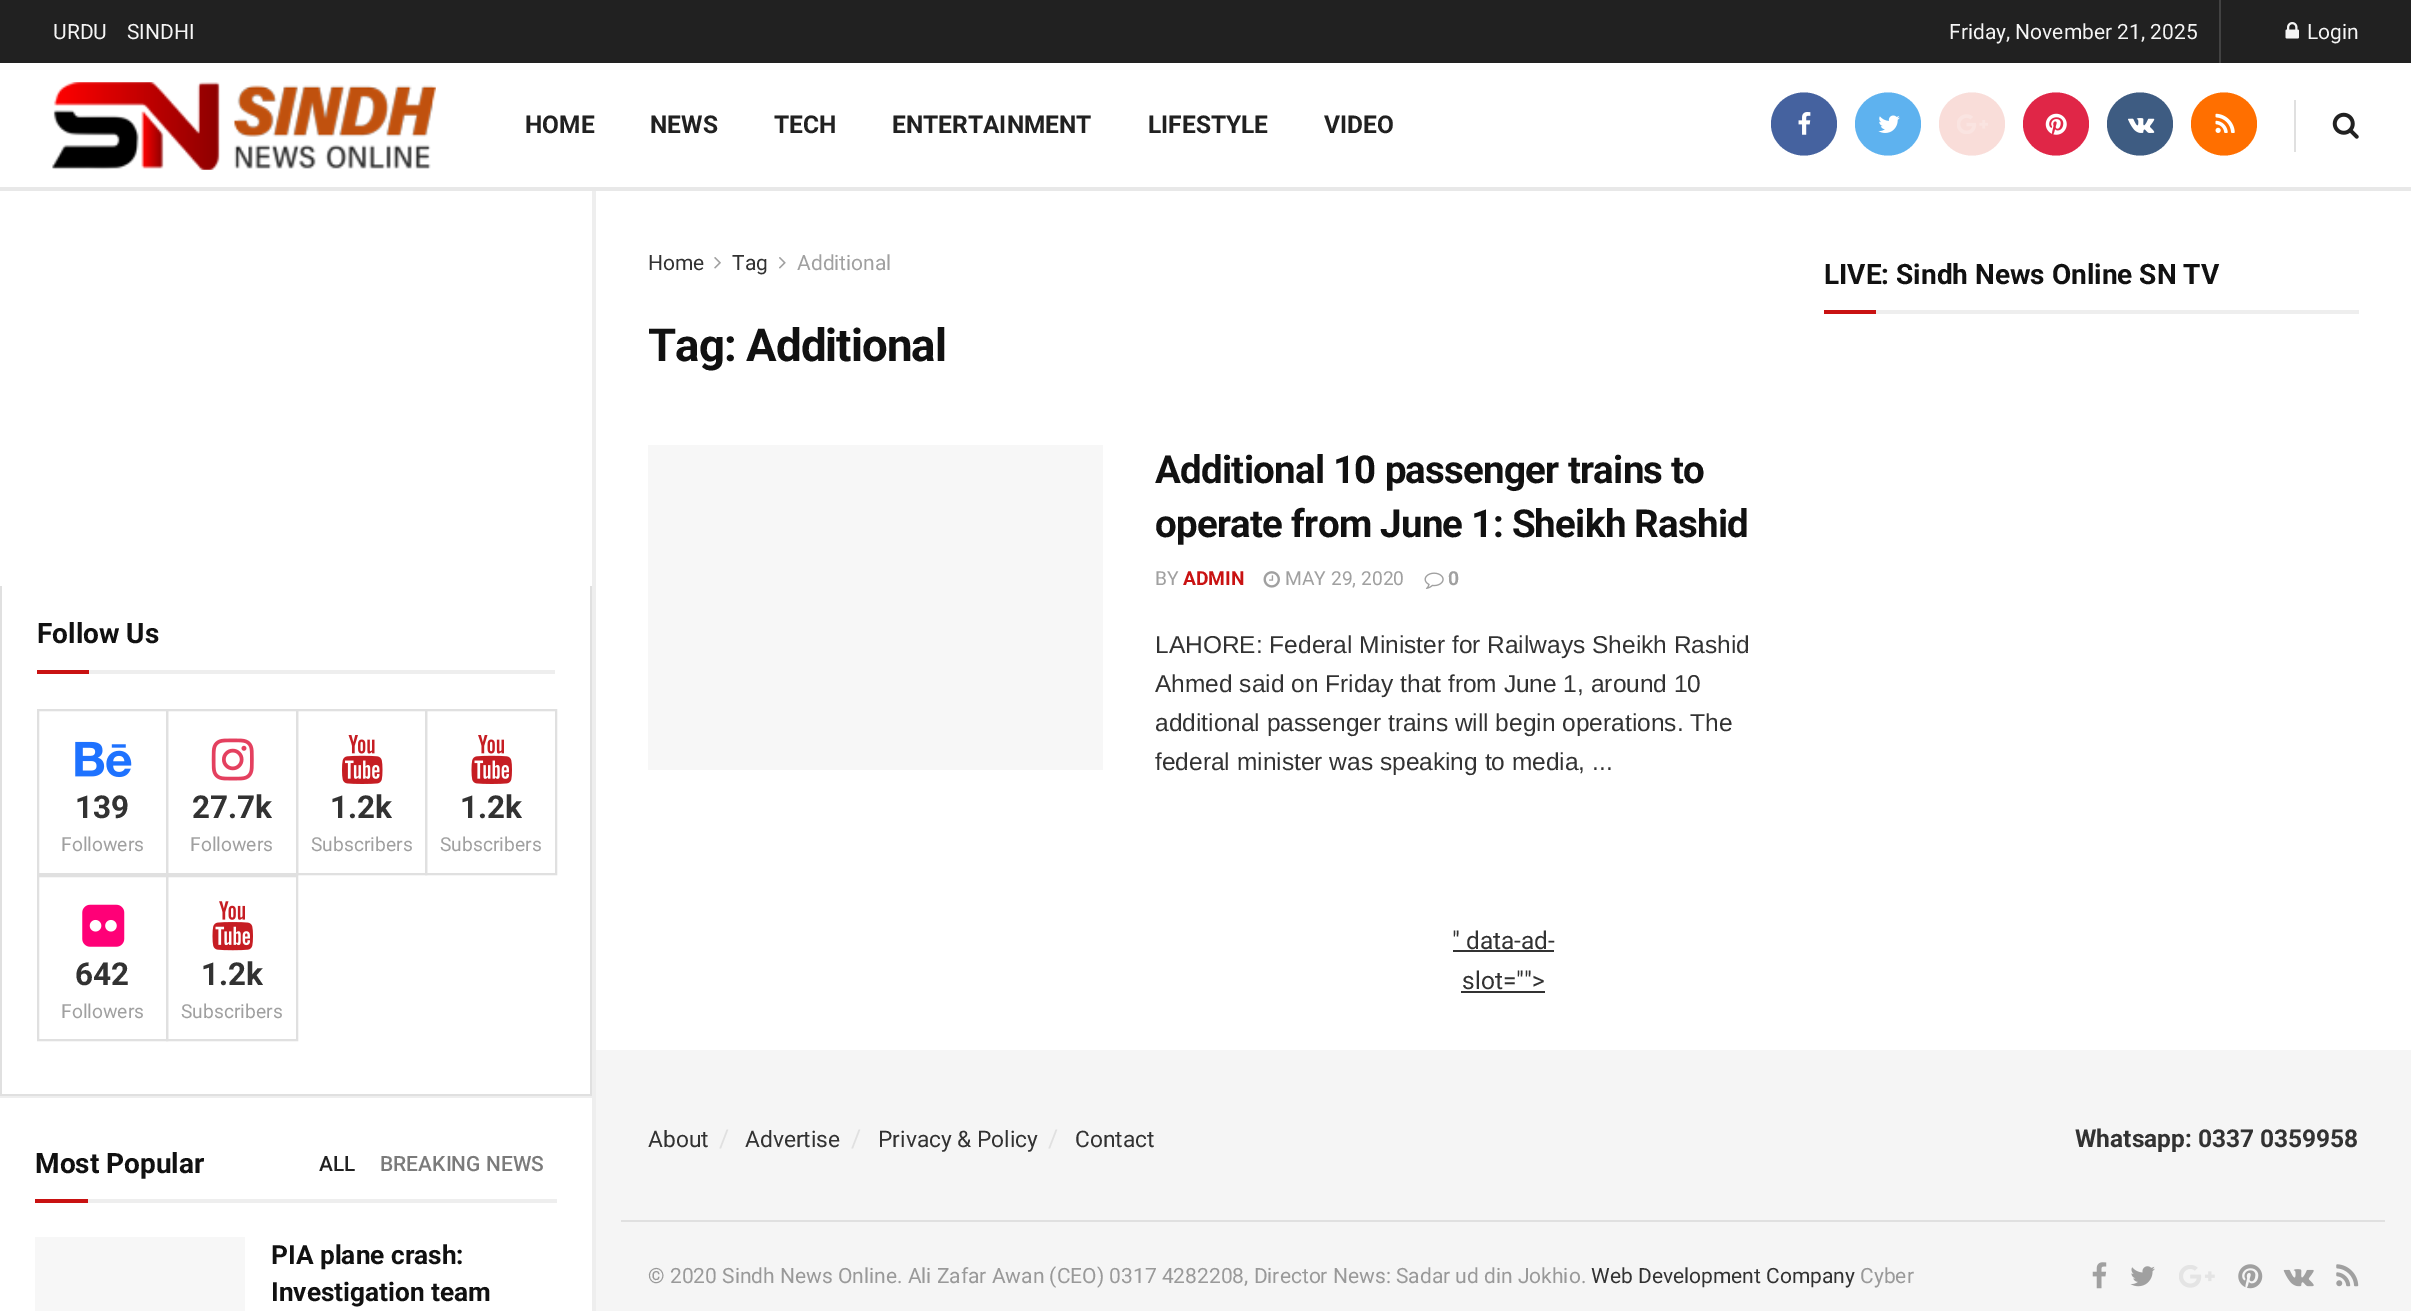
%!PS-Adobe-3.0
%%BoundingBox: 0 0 2411 1311
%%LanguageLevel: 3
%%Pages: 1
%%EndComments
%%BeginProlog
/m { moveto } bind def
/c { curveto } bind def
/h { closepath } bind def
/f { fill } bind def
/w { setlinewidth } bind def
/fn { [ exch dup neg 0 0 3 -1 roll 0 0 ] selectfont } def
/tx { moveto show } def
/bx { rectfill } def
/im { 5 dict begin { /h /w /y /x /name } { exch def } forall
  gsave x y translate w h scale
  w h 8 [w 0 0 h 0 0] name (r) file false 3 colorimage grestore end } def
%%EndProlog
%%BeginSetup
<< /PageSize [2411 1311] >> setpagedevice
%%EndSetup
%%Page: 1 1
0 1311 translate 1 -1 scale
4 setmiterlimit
1 setgray
0 0 2411 1311 bx
0.129 setgray
0 0 2411 63 bx
/Roboto-Regular 21 fn
0.961 setgray
(URDU) 53 39 tx
(SINDHI) 127 39 tx
0.259 setgray
2219 0 2 63 bx
0.961 setgray
(Friday, November 21, 2025) 1949 39 tx
(image0.raw) 2285 22 14 17 im
(Login) 2307 39 tx
0.91 setgray
0 187 2411 4 bx
(image1.raw) 52 82 384 88 im
/Roboto-Bold 24.5 fn
0.129 setgray
(HOME) 525 133 tx
(NEWS) 650 133 tx
(TECH) 774 133 tx
(ENTERTAINMENT) 892 133 tx
(LIFESTYLE) 1148 133 tx
(VIDEO) 1324 133 tx
0.271 0.384 0.624 setrgbcolor
1804 92.5 m 1822 92.5 1837 106.5 1837 124 c 1837 141.5 1822 155.5 1804 155.5 c 1786 155.5 1771 141.5 1771 124 c 1771 106.5 1786 92.5 1804 92.5 c h f
(image2.raw) 1798 112 13 23 im
0.369 0.698 0.937 setrgbcolor
1888 92.5 m 1906 92.5 1921 106.5 1921 124 c 1921 141.5 1906 155.5 1888 155.5 c 1870 155.5 1855 141.5 1855 124 c 1855 106.5 1870 92.5 1888 92.5 c h f
(image3.raw) 1878 115 22 18 im
0.976 0.867 0.851 setrgbcolor
1972 92.5 m 1990 92.5 2005 106.5 2005 124 c 2005 141.5 1990 155.5 1972 155.5 c 1954 155.5 1939 141.5 1939 124 c 1939 106.5 1954 92.5 1972 92.5 c h f
(image4.raw) 1957 114 31 20 im
0.878 0.149 0.278 setrgbcolor
2056 92.5 m 2074 92.5 2089 106.5 2089 124 c 2089 141.5 2074 155.5 2056 155.5 c 2038 155.5 2023 141.5 2023 124 c 2023 106.5 2038 92.5 2056 92.5 c h f
(image5.raw) 2045 113 22 22 im
0.243 0.361 0.51 setrgbcolor
2140 92.5 m 2158 92.5 2173 106.5 2173 124 c 2173 141.5 2158 155.5 2140 155.5 c 2122 155.5 2107 141.5 2107 124 c 2107 106.5 2122 92.5 2140 92.5 c h f
(image6.raw) 2128 118 27 15 im
1 0.435 0 setrgbcolor
2224 92.5 m 2242 92.5 2257 106.5 2257 124 c 2257 141.5 2242 155.5 2224 155.5 c 2206 155.5 2191 141.5 2191 124 c 2191 106.5 2206 92.5 2224 92.5 c h f
(image7.raw) 2215 113 20 20 im
0.878 setgray
2294 100 2 52 bx
(image8.raw) 2332 112 27 27 im
/Roboto-Regular 21 fn
0.196 setgray
(Home) 648 270 tx
(image9.raw) 714 257 7 12 im
(Tag) 732 270 tx
(image10.raw) 779 257 7 12 im
0.627 setgray
(Additional) 797 270 tx
/Roboto-Bold 45.5 fn
0.067 setgray
648 361 m -0.9 0 (Tag: Additional) ashow
0.969 setgray
648 445 455 325 bx
/Roboto-Bold 38.5 fn
0.067 setgray
1155 483 m -0.75 0 (Additional 10 passenger trains to) ashow
1155 537 m -0.75 0 (operate from June 1: Sheikh Rashid) ashow
/Roboto-Regular 19.25 fn
0.627 setgray
(BY) 1155 585 tx
/Roboto-Bold 19.25 fn
0.788 0.071 0.071 setrgbcolor
(ADMIN) 1183 585 tx
(image11.raw) 1263 571 17 17 im
/Roboto-Regular 19.25 fn
0.627 setgray
(MAY 29, 2020) 1285 585 tx
(image12.raw) 1424 572 20 17 im
/Roboto-Bold 19.25 fn
(0) 1448 585 tx
/LiberationSans-Regular 24.5 fn
0.196 setgray
(LAHORE: Federal Minister for Railways Sheikh Rashid) 1155 653 tx
(Ahmed said on Friday that from June 1, around 10) 1155 692 tx
(additional passenger trains will begin operations. The) 1155 731 tx
(federal minister was speaking to media, ...) 1155 770 tx
0.933 setgray
1876 310 483 4 bx
/Roboto-Bold 28 fn
0.067 setgray
(LIVE: Sindh News Online SN TV) 1824 284 tx
0.788 0.071 0.071 setrgbcolor
1824 310 52 4 bx
/Roboto-Regular 24.5 fn
0.196 setgray
(" data-ad-) 1452 949 tx
1453 950 101 2 bx
(slot="">) 1462 989 tx
1461 991 84 2 bx
0.961 setgray
596 1050 1815 261 bx
/Roboto-Regular 22.75 fn
0.196 setgray
(About) 648 1147 tx
/Roboto-Regular 24.5 fn
0.878 setgray
(/) 719 1147 tx
/Roboto-Regular 22.75 fn
0.196 setgray
(Advertise) 745 1147 tx
/Roboto-Regular 24.5 fn
0.878 setgray
(/) 851 1147 tx
/Roboto-Regular 22.75 fn
0.196 setgray
(Privacy & Policy) 878 1147 tx
/Roboto-Regular 24.5 fn
0.878 setgray
(/) 1048 1147 tx
/Roboto-Regular 22.75 fn
0.196 setgray
(Contact) 1075 1147 tx
/Roboto-Bold 24.5 fn
(Whatsapp: 0337 0359958) 2075 1147 tx
0.878 setgray
621 1220 1764 2 bx
/Roboto-Regular 21 fn
0.6 setgray
(© 2020 Sindh News Online. Ali Zafar Awan \(CEO\) 0317 4282208, Director News: Sadar ud din Jokhio.) 648 1283 tx
0.196 setgray
(Web Development Company) 1591 1283 tx
0.6 setgray
(Cyber) 1860 1283 tx
(image13.raw) 2092 1262 15 27 im
(image14.raw) 2130 1266 25 21 im
(image15.raw) 2179 1265 36 23 im
(image16.raw) 2238 1264 25 25 im
(image17.raw) 2283 1269 31 18 im
(image18.raw) 2336 1264 23 23 im
0.933 setgray
592 191 4 1120 bx
0.878 setgray
590 586 2 510 bx
0 1094 592 2 bx
0 586 2 510 bx
0.933 setgray
89 670 466 4 bx
/Roboto-Bold 28 fn
0.067 setgray
(Follow Us) 37 643 tx
0.788 0.071 0.071 setrgbcolor
37 670 52 4 bx
0.878 setgray
2 w
38 710 129 164 rectstroke
(image19.raw) 75 741 57 37 im
/Roboto-Bold 31.5 fn
0.196 setgray
(139) 75 818 tx
/Roboto-Regular 19.25 fn
0.627 setgray
(Followers) 61 851 tx
0.878 setgray
167 710 130 164 rectstroke
(image20.raw) 211 738 43 43 im
/Roboto-Bold 31.5 fn
0.196 setgray
(27.7k) 192 818 tx
/Roboto-Regular 19.25 fn
0.627 setgray
(Followers) 190 851 tx
0.878 setgray
297 710 129 164 rectstroke
(image21.raw) 342 735 41 49 im
/Roboto-Bold 31.5 fn
0.196 setgray
(1.2k) 330 818 tx
/Roboto-Regular 19.25 fn
0.627 setgray
(Subscribers) 311 851 tx
0.878 setgray
426 710 130 164 rectstroke
(image22.raw) 471 735 41 49 im
/Roboto-Bold 31.5 fn
0.196 setgray
(1.2k) 460 818 tx
/Roboto-Regular 19.25 fn
0.627 setgray
(Subscribers) 440 851 tx
0.878 setgray
38 876 129 164 rectstroke
(image23.raw) 82 904 43 43 im
/Roboto-Bold 31.5 fn
0.196 setgray
(642) 75 985 tx
/Roboto-Regular 19.25 fn
0.627 setgray
(Followers) 61 1018 tx
0.878 setgray
167 876 130 164 rectstroke
(image24.raw) 212 901 41 50 im
/Roboto-Bold 31.5 fn
0.196 setgray
(1.2k) 201 985 tx
/Roboto-Regular 19.25 fn
0.627 setgray
(Subscribers) 181 1018 tx
0.933 setgray
0 1096 592 2 bx
88 1199 469 4 bx
/Roboto-Bold 28 fn
0.067 setgray
(Most Popular) 35 1173 tx
/Roboto-Medium 21 fn
0.129 setgray
(ALL) 319 1171 tx
0.482 setgray
(BREAKING NEWS) 380 1171 tx
0.788 0.071 0.071 setrgbcolor
35 1199 53 4 bx
0.969 setgray
35 1237 210 74 bx
/Roboto-Bold 26.25 fn
0.067 setgray
(PIA plane crash:) 271 1264 tx
(Investigation team) 271 1301 tx
showpage
%%EOF
